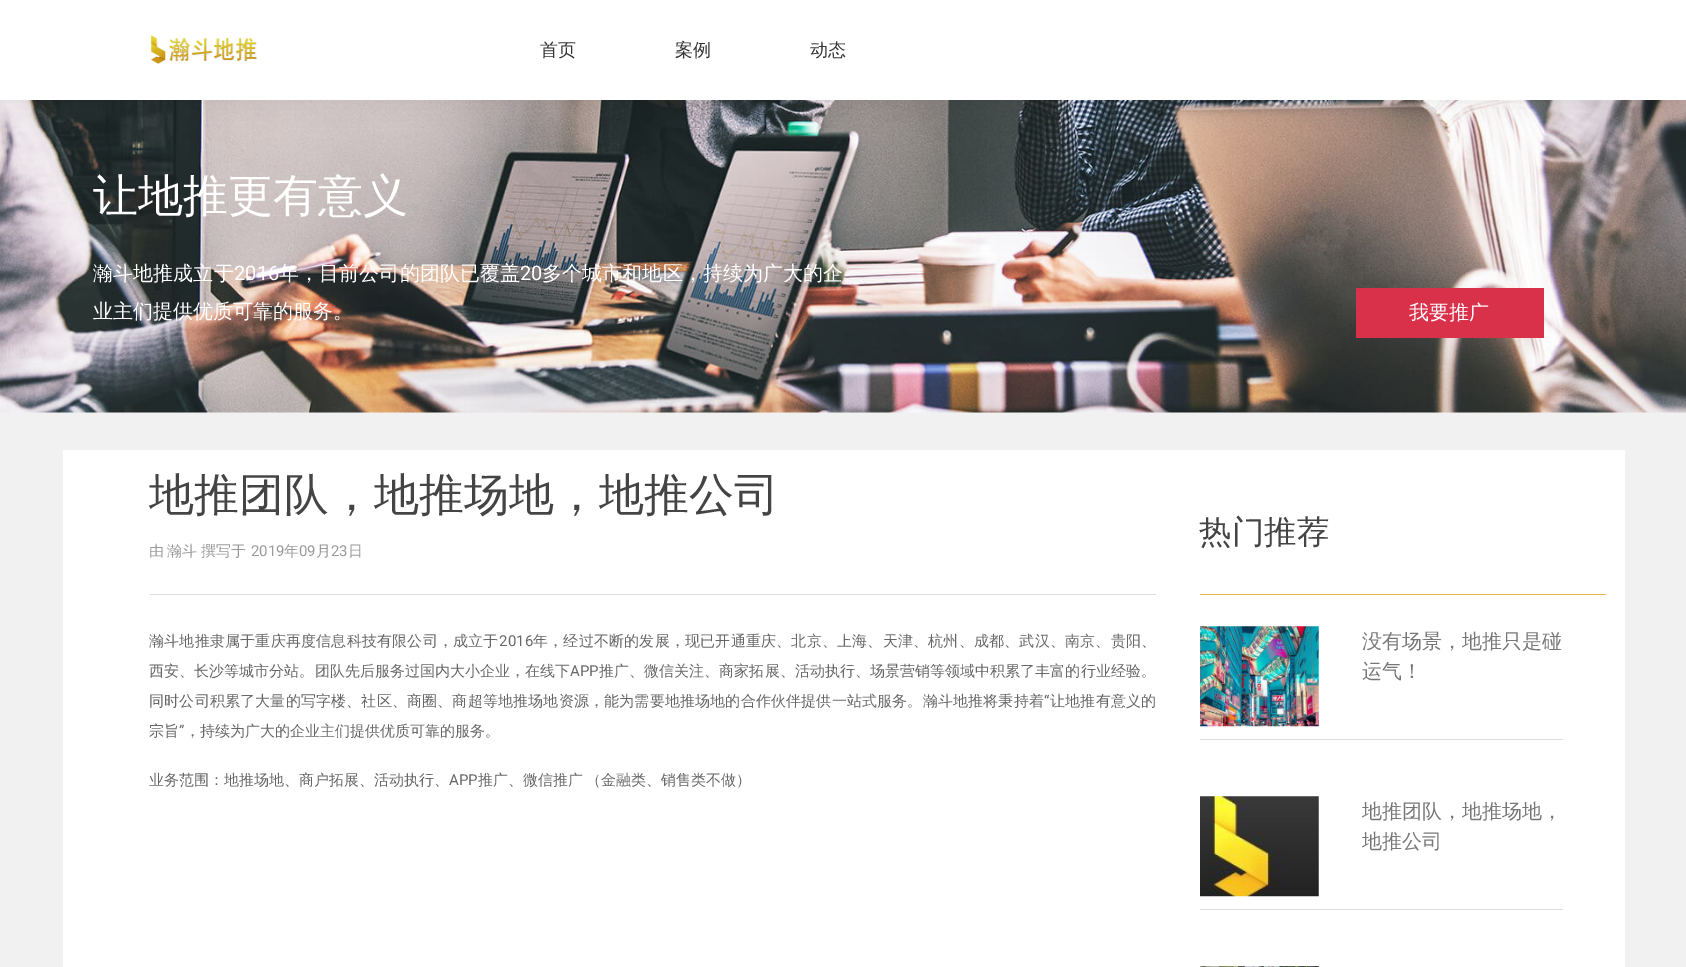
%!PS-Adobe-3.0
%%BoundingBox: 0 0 1686 967
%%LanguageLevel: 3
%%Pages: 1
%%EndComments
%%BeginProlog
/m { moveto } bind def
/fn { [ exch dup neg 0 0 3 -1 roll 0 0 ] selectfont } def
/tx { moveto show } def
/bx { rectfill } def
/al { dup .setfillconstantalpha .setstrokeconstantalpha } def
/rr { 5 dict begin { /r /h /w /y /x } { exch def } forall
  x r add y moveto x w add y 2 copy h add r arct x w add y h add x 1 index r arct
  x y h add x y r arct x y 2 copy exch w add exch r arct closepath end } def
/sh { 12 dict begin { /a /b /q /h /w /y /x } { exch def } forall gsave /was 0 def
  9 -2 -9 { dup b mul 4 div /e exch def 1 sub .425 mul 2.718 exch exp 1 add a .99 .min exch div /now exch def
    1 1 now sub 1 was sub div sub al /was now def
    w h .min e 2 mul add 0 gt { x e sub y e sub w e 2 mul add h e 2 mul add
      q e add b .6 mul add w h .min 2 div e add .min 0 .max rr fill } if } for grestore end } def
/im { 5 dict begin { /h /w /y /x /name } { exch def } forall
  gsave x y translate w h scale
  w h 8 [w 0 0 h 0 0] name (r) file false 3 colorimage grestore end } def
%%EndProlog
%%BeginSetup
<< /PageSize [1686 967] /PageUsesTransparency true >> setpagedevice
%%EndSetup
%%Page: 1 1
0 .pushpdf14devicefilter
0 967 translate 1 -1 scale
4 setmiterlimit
0.945 setgray
0 0 1686 967 bx
(image1.raw) 0 100 1686 313 im
0 setgray
0 0 1686 100 0 12.5 0.07 sh
1 setgray
0 0 1686 100 bx
(image0.raw) 150 35 108 29 im
/WenQuanYiZenHei-Medium 18 fn
0.2 setgray
(首页) 540 56 tx
(案例) 675 56 tx
(动态) 810 56 tx
/WenQuanYiZenHei-Medium 45 fn
1 setgray
(让地推更有意义) 93 211 tx
/WenQuanYiZenHei-Medium 20 fn
93 280 m 0.1 0 (瀚斗地推成立于) ashow
/Roboto-Regular 20 fn
234 280 m 0.1 0 (2016) ashow
/WenQuanYiZenHei-Medium 20 fn
279 280 m 0.1 0 (年，目前公司的团队已覆盖) ashow
/Roboto-Regular 20 fn
520 280 m 0.1 0 (20) ashow
/WenQuanYiZenHei-Medium 20 fn
542 280 m 0.1 0 (多个城市和地区，持续为广大的企) ashow
(业主们提供优质可靠的服务。) 93 318 tx
0.855 0.192 0.294 setrgbcolor
1356 288 188 50 bx
1 setgray
(我要推广) 1409 319 tx
63 450 1562 517 bx
/WenQuanYiZenHei-Medium 45 fn
0.267 setgray
(地推团队，地推场地，地推公司) 149 510 tx
/WenQuanYiZenHei-Medium 15 fn
0.6 setgray
149 556 m -1 0 32 (由 瀚斗 撰写于) widthshow
/Roboto-Regular 15 fn
(2019) 251 556 tx
/WenQuanYiZenHei-Medium 15 fn
(年) 284 556 tx
/Roboto-Regular 15 fn
(09) 299 556 tx
/WenQuanYiZenHei-Medium 15 fn
(月) 316 556 tx
/Roboto-Regular 15 fn
(23) 331 556 tx
/WenQuanYiZenHei-Medium 15 fn
(日) 348 556 tx
0.867 setgray
150 594 1006 1 bx
0.4 setgray
149 646 m 0.2 0 (瀚斗地推隶属于重庆再度信息科技有限公司，成立于) ashow
/Roboto-Regular 15 fn
499 646 m 0.2 0 (2016) ashow
/WenQuanYiZenHei-Medium 15 fn
533 646 m 0.2 0 (年，经过不断的发展，现已开通重庆、北京、上海、天津、杭州、成都、武汉、南京、贵阳、) ashow
149 676 m 0.05 0 (西安、长沙等城市分站。团队先后服务过国内大小企业，在线下) ashow
/Roboto-Regular 15 fn
570 676 m 0.05 0 (APP) ashow
/WenQuanYiZenHei-Medium 15 fn
599 676 m 0.05 0 (推广、微信关注、商家拓展、活动执行、场景营销等领域中积累了丰富的行业经验。) ashow
149 706 m 0.17 0 (同时公司积累了大量的写字楼、社区、商圈、商超等地推场地资源，能为需要地推场地的合作伙伴提供一站式服务。瀚斗地推将秉持着) ashow
/Roboto-Regular 15 fn
1044 706 m 0.17 0 (“) ashow
/WenQuanYiZenHei-Medium 15 fn
1050 706 m 0.17 0 (让地推有意义的) ashow
(宗旨) 149 736 tx
/Roboto-Regular 15 fn
(”) 179 736 tx
/WenQuanYiZenHei-Medium 15 fn
(，持续为广大的企业主们提供优质可靠的服务。) 185 736 tx
(业务范围：地推场地、商户拓展、活动执行、) 149 785 tx
/Roboto-Regular 15 fn
(APP) 449 785 tx
/WenQuanYiZenHei-Medium 15 fn
478 785 m -1 0 32 (推广、微信推广 （金融类、销售类不做）) widthshow
0.906 0.718 0.275 setrgbcolor
1200 594 406 1 bx
/WenQuanYiZenHei-Medium 32.5 fn
0.267 setgray
(热门推荐) 1199 543 tx
0.867 setgray
1200 739 363 1 bx
(image2.raw) 1200 626 119 101 im
/WenQuanYiZenHei-Medium 20 fn
0.467 setgray
(没有场景，地推只是碰) 1362 648 tx
(运气！) 1362 678 tx
0.867 setgray
1200 909 363 1 bx
(image3.raw) 1200 796 119 101 im
0.467 setgray
(地推团队，地推场地，) 1362 818 tx
(地推公司) 1362 848 tx
(image4.raw) 1200 966 119 1 im
.poppdf14devicefilter showpage
%%EOF
